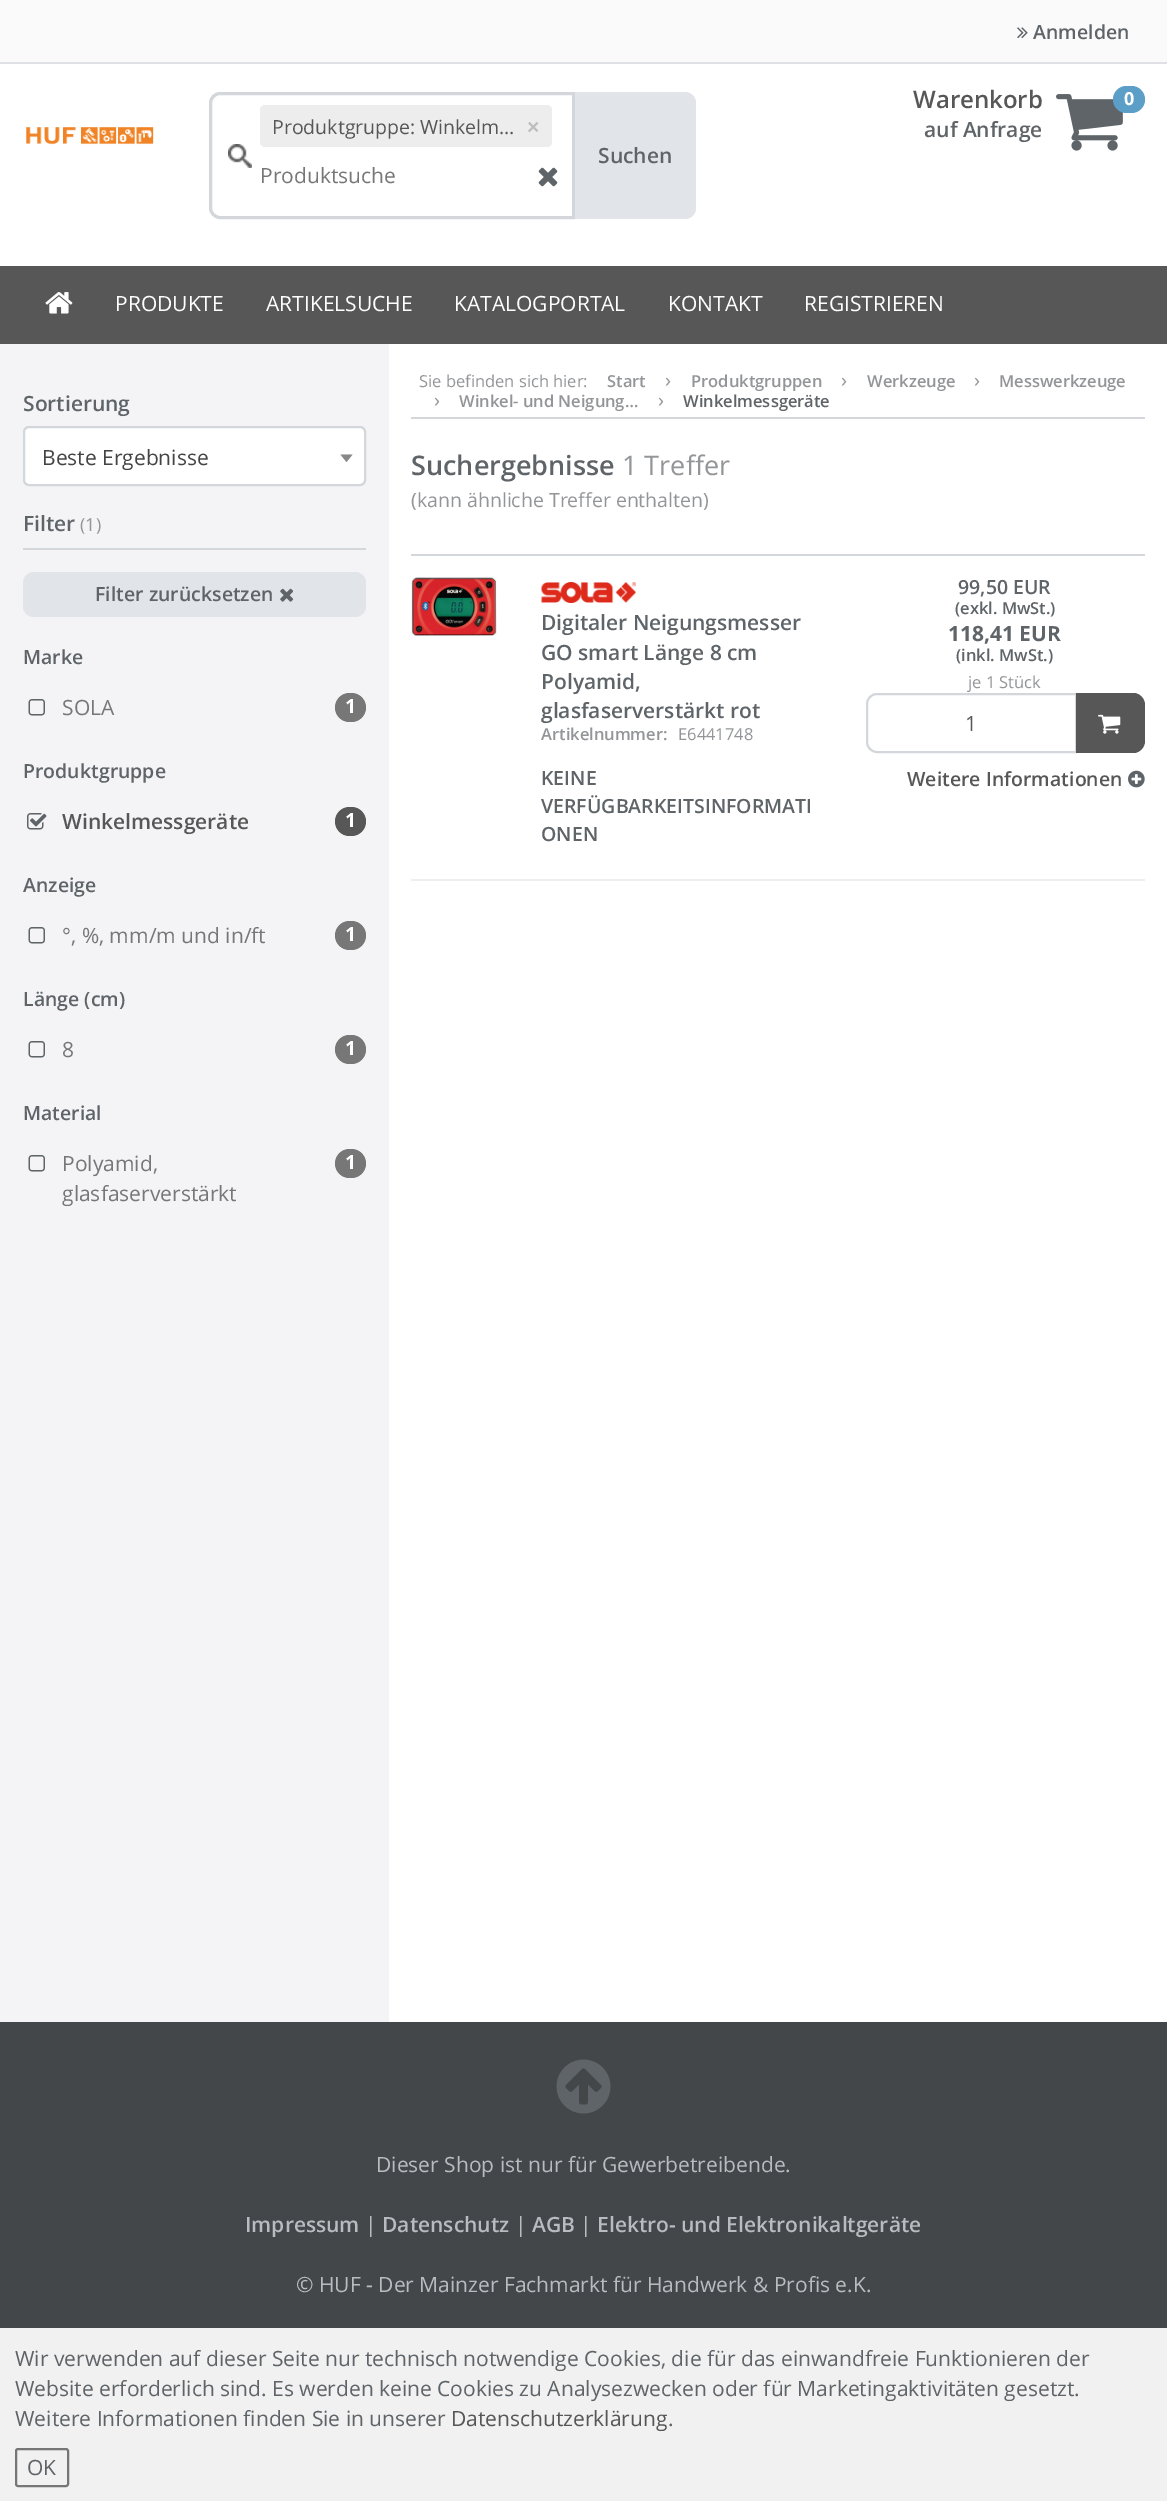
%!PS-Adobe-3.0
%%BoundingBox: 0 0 1167 2501
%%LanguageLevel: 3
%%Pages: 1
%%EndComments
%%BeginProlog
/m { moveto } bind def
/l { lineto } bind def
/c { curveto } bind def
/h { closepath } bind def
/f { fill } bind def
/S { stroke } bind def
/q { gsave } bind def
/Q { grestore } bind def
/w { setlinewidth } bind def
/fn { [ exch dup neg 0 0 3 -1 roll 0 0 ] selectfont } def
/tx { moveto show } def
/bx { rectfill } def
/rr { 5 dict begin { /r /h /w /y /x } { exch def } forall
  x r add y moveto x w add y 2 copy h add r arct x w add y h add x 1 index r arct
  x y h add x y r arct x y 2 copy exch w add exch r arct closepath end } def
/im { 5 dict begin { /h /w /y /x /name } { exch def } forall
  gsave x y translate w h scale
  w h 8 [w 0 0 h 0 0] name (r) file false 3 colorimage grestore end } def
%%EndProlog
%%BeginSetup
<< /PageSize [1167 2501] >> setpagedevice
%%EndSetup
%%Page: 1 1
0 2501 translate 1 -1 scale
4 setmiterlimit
1 setgray
0 0 1167 2501 bx
0.98 setgray
0 0 1167 62 bx
0.875 0.882 0.894 setrgbcolor
0 62 1167 2 bx
(image0.raw) 1017 27 11 12 im
/OpenSans-SemiBold 19.5 fn
0.369 0.392 0.408 setrgbcolor
(Anmelden) 1033 39 tx
(image1.raw) 26 127 128 18 im
(image2.raw) 228 144 24 24 im
0.827 0.839 0.855 setrgbcolor
3 w
220 93.5 m 573.5 93.5 l 573.5 217.5 l 220 217.5 l 215 217.5 210.5 213 210.5 208 c 210.5 103 l 210.5 98 215 93.5 220 93.5 c h S
0.929 setgray
260 105 292 42 5 rr f
/OpenSans-Regular 19.5 fn
0.341 setgray
(Produktgruppe: Winkelm…) 272 134 tx
/LiberationSans-Bold 21 fn
0.745 setgray
(×) 527 134 tx
/OpenSans-Regular 21 fn
0.467 setgray
(Produktsuche) 260 183 tx
(image3.raw) 538 167 20 20 im
0.882 0.894 0.91 setrgbcolor
575 92 m 685 92 l 691 92 696 97 696 103 c 696 208 l 696 214 691 219 685 219 c 575 219 l h f
/OpenSans-SemiBold 21 fn
0.369 0.392 0.408 setrgbcolor
(Suchen) 598 163 tx
/OpenSans-SemiBold 24 fn
0.341 setgray
(Warenkorb) 913 108 tx
/OpenSans-SemiBold 21 fn
0.369 0.392 0.408 setrgbcolor
(auf Anfrage) 924 137 tx
(image4.raw) 1056 94 67 57 im
0.357 0.62 0.78 setrgbcolor
1113 86 32 27 13.5 rr f
/OpenSans-Bold 18 fn
1 setgray
(0) 1124 105 tx
0.341 setgray
0 266 1167 78 bx
(image5.raw) 45 292 28 22 im
/OpenSans-Regular 21 fn
1 setgray
(PRODUKTE) 115 311 tx
(ARTIKELSUCHE) 266 311 tx
(KATALOGPORTAL) 454 311 tx
(KONTAKT) 668 311 tx
(REGISTRIEREN) 804 311 tx
0.957 0.957 0.965 setrgbcolor
0 344 389 1678 bx
/OpenSans-SemiBold 21 fn
0.369 0.392 0.408 setrgbcolor
(Sortierung) 23 411 tx
1 setgray
24 427 341 58 5 rr q f Q
0.827 0.839 0.855 setrgbcolor
2 w
S
/OpenSans-Regular 21 fn
0.267 setgray
(Beste Ergebnisse) 42 465 tx
0.533 setgray
340.5 454.5 m 352.5 454.5 l 346.5 462 l h f
0.827 0.839 0.855 setrgbcolor
23 548 343 2 bx
/OpenSans-SemiBold 21 fn
0.369 0.392 0.408 setrgbcolor
(Filter) 23 531 tx
/OpenSans-Regular 18 fn
0.58 0.584 0.596 setrgbcolor
(\(1\)) 80 531 tx
0.882 0.894 0.91 setrgbcolor
23 572 343 45 11 rr f
/OpenSans-SemiBold 19.5 fn
0.369 0.392 0.408 setrgbcolor
(Filter zurücksetzen) 95 601 tx
(image6.raw) 280 588 14 14 im
(Marke) 23 664 tx
(image7.raw) 28 699 17 17 im
/OpenSans-Regular 21 fn
0.467 setgray
(SOLA) 62 715 tx
335 693 31 29 14.5 rr f
/OpenSans-Bold 19.5 fn
1 setgray
(1) 345 713 tx
/OpenSans-SemiBold 19.5 fn
0.369 0.392 0.408 setrgbcolor
(Produktgruppe) 23 778 tx
(image8.raw) 27 813 20 17 im
/OpenSans-SemiBold 21 fn
0.341 setgray
(Winkelmessgeräte) 62 829 tx
335 807 31 29 14.5 rr f
/OpenSans-Bold 19.5 fn
1 setgray
(1) 345 827 tx
/OpenSans-SemiBold 19.5 fn
0.369 0.392 0.408 setrgbcolor
(Anzeige) 23 892 tx
(image7.raw) 28 927 17 17 im
/OpenSans-Regular 21 fn
0.467 setgray
(°, %, mm/m und in/ft) 62 943 tx
335 921 31 29 14.5 rr f
/OpenSans-Bold 19.5 fn
1 setgray
(1) 345 941 tx
/OpenSans-SemiBold 19.5 fn
0.369 0.392 0.408 setrgbcolor
(Länge \(cm\)) 23 1006 tx
(image7.raw) 28 1041 17 17 im
/OpenSans-Regular 21 fn
0.467 setgray
(8) 62 1057 tx
335 1035 31 29 14.5 rr f
/OpenSans-Bold 19.5 fn
1 setgray
(1) 345 1055 tx
/OpenSans-SemiBold 19.5 fn
0.369 0.392 0.408 setrgbcolor
(Material) 23 1120 tx
(image7.raw) 28 1155 17 17 im
/OpenSans-Regular 21 fn
0.467 setgray
(Polyamid,) 62 1171 tx
(glasfaserverstärkt) 62 1201 tx
335 1149 31 29 14.5 rr f
/OpenSans-Bold 19.5 fn
1 setgray
(1) 345 1169 tx
0.827 0.839 0.855 setrgbcolor
411 417 734 2 bx
/OpenSans-Regular 16.5 fn
0.58 0.584 0.596 setrgbcolor
(Sie befinden sich hier:) 419 387 tx
/OpenSans-SemiBold 16.5 fn
(Start) 607 387 tx
/OpenSans-Regular 20 fn
(›) 665 387 tx
/OpenSans-SemiBold 16.5 fn
(Produktgruppen) 691 387 tx
/OpenSans-Regular 20 fn
(›) 841 387 tx
/OpenSans-SemiBold 16.5 fn
(Werkzeuge) 867 387 tx
/OpenSans-Regular 20 fn
(›) 974 387 tx
/OpenSans-SemiBold 16.5 fn
(Messwerkzeuge) 999 387 tx
/OpenSans-Regular 20 fn
(›) 434 407 tx
/OpenSans-SemiBold 16.5 fn
(Winkel- und Neigung…) 459 407 tx
/OpenSans-Regular 20 fn
(›) 658 407 tx
/OpenSans-SemiBold 16.5 fn
0.369 0.392 0.408 setrgbcolor
(Winkelmessgeräte) 683 407 tx
0.827 0.839 0.855 setrgbcolor
411 554 734 2 bx
/OpenSans-SemiBold 27 fn
0.369 0.392 0.408 setrgbcolor
(Suchergebnisse) 411 475 tx
/OpenSans-Regular 27 fn
0.58 0.584 0.596 setrgbcolor
(1 Treffer) 622 475 tx
/OpenSans-Regular 19.5 fn
(\(kann ähnliche Treffer enthalten\)) 411 507 tx
(image9.raw) 411 577 86 59 im
(image10.raw) 541 582 95 21 im
/OpenSans-SemiBold 21 fn
0.369 0.392 0.408 setrgbcolor
(Digitaler Neigungsmesser) 541 630 tx
(GO smart Länge 8 cm) 541 660 tx
(Polyamid,) 541 689 tx
(glasfaserverstärkt rot) 541 718 tx
/OpenSans-SemiBold 16.5 fn
0.58 0.584 0.596 setrgbcolor
(Artikelnummer:) 541 740 tx
/OpenSans-Regular 16.5 fn
(E6441748) 678 740 tx
/OpenSans-SemiBold 19.5 fn
0.369 0.392 0.408 setrgbcolor
(KEINE) 541 785 tx
(VERFÜGBARKEITSINFORMATI) 541 813 tx
(ONEN) 541 841 tx
(99,50 EUR) 958 594 tx
/OpenSans-SemiBold 16.5 fn
(\(exkl. MwSt.\)) 955 614 tx
/OpenSans-Bold 21 fn
(118,41 EUR) 948 641 tx
/OpenSans-SemiBold 16.5 fn
(\(inkl. MwSt.\)) 956 661 tx
/OpenSans-Regular 16.5 fn
0.58 0.584 0.596 setrgbcolor
(je 1 Stück) 968 688 tx
0.827 0.839 0.855 setrgbcolor
877 694 m 1076 694 l 1076 752 l 877 752 l 871.5 752 867 747.5 867 742 c 867 704 l 867 698.5 871.5 694 877 694 c h S
/OpenSans-Regular 21 fn
0.341 setgray
(1) 965 731 tx
1076 693 m 1133 693 l 1139.5 693 1145 698.5 1145 705 c 1145 741 l 1145 747.5 1139.5 753 1133 753 c 1076 753 l h f
1076 693 m 1132 693 l 1139 693 1144 698 1144 705 c 1144 741 l 1144 748 1139 753 1132 753 c 1076 753 l h 1076 694 m 1132 694 l 1138 694 1143 699 1143 705 c 1143 741 l 1143 747 1138 752 1132 752 c 1076 752 l h eofill
(image11.raw) 1098 714 23 20 im
/OpenSans-SemiBold 19.5 fn
(Weitere Informationen) 907 786 tx
(image12.raw) 1128 770 17 18 im
0.933 setgray
411 879 734 2 bx
0.263 0.278 0.29 setrgbcolor
0 2022 1167 306 bx
(image13.raw) 556 2059 55 55 im
/OpenSans-Regular 21 fn
0.722 0.733 0.749 setrgbcolor
(Dieser Shop ist nur für Gewerbetreibende.) 376 2172 tx
/OpenSans-SemiBold 21 fn
(Impressum) 245 2232 tx
/OpenSans-Regular 21 fn
(|) 365 2232 tx
/OpenSans-SemiBold 21 fn
(Datenschutz) 382 2232 tx
/OpenSans-Regular 21 fn
(|) 515 2232 tx
/OpenSans-SemiBold 21 fn
(AGB) 532 2232 tx
/OpenSans-Regular 21 fn
(|) 580 2232 tx
/OpenSans-SemiBold 21 fn
(Elektro- und Elektronikaltgeräte) 597 2232 tx
/OpenSans-Regular 21 fn
(© HUF - Der Mainzer Fachmarkt für Handwerk & Profis e.K.) 296 2292 tx
0.945 setgray
0 2328 1167 173 bx
0.369 0.392 0.408 setrgbcolor
(Wir verwenden auf dieser Seite nur technisch notwendige Cookies, die für das einwandfreie Funktionieren der) 15 2366 tx
(Website erforderlich sind. Es werden keine Cookies zu Analysezwecken oder für Marketingaktivitäten gesetzt.) 15 2396 tx
(Weitere Informationen finden Sie in unserer) 15 2426 tx
0.341 setgray
(Datenschutzerklärung) 451 2426 tx
0.369 0.392 0.408 setrgbcolor
(.) 668 2426 tx
0.463 setgray
16 2449 52 37 2 rr S
0.369 0.392 0.408 setrgbcolor
(OK) 27 2475 tx
showpage
%%EOF
